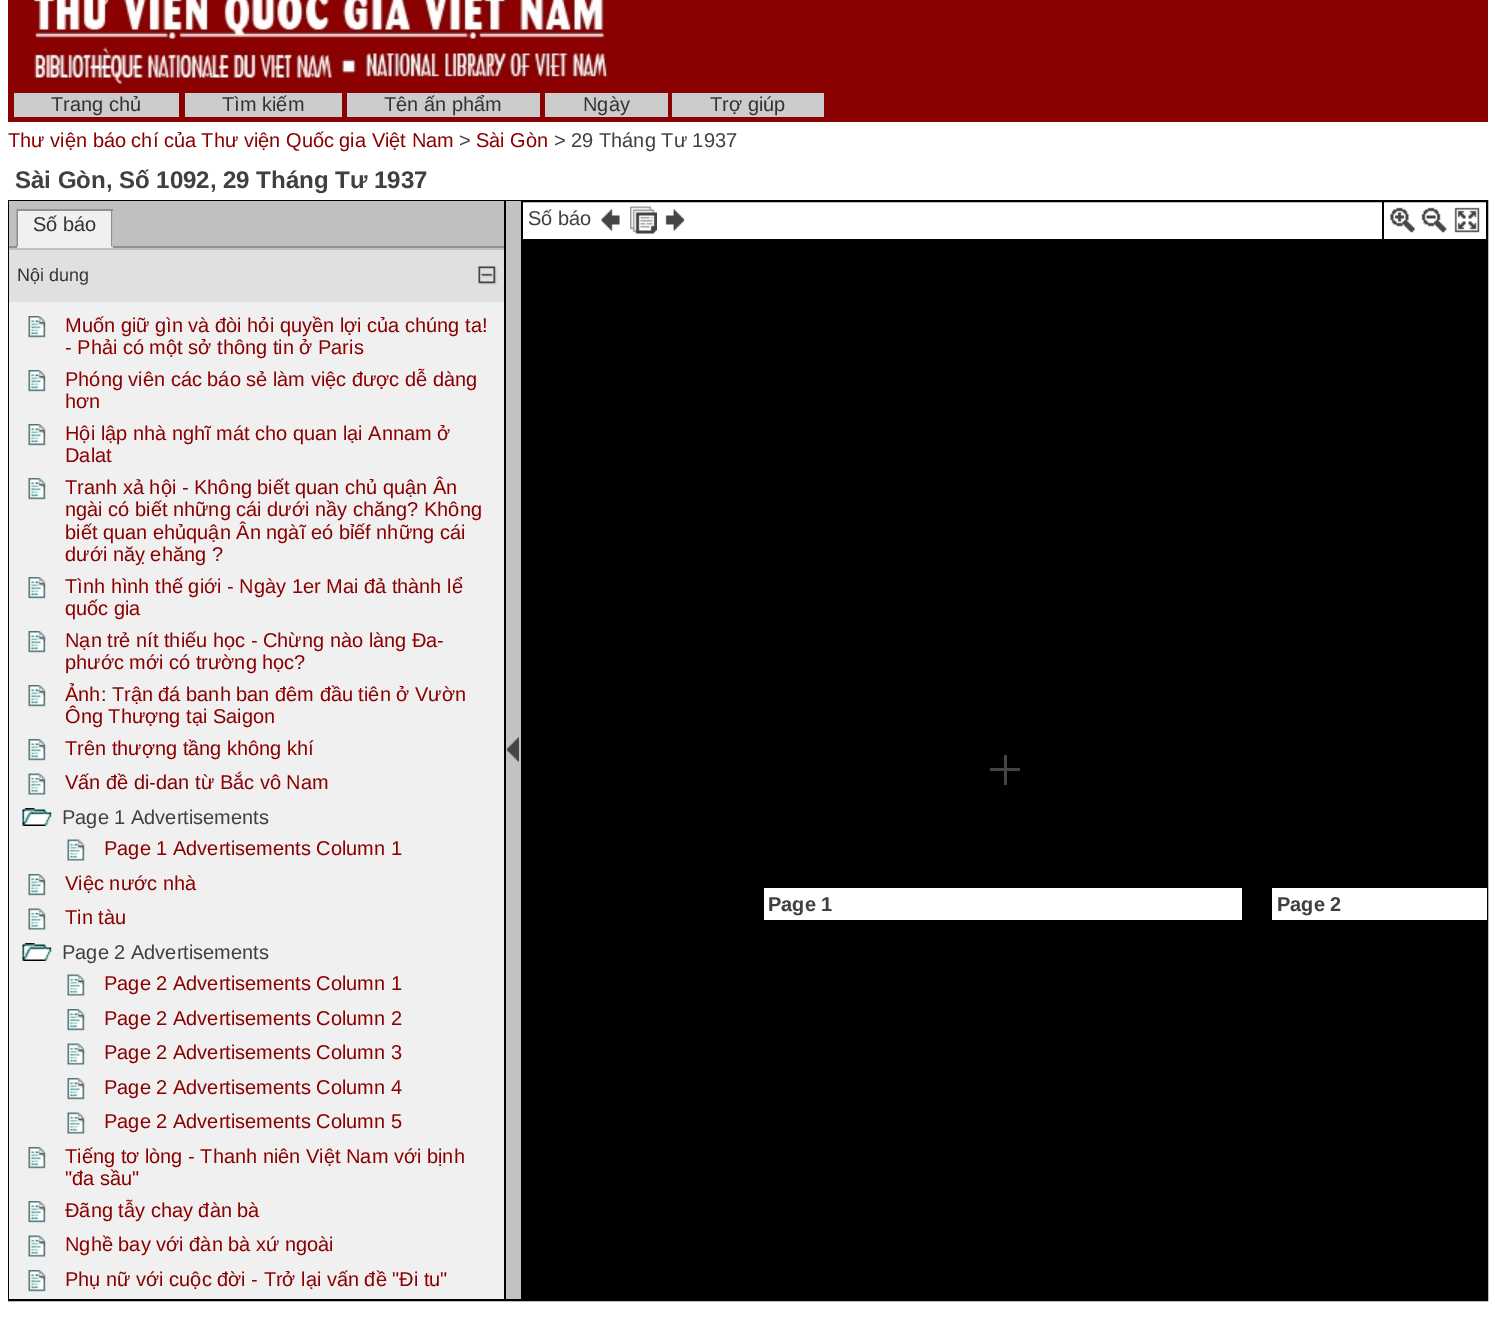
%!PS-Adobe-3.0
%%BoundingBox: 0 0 1495 1339
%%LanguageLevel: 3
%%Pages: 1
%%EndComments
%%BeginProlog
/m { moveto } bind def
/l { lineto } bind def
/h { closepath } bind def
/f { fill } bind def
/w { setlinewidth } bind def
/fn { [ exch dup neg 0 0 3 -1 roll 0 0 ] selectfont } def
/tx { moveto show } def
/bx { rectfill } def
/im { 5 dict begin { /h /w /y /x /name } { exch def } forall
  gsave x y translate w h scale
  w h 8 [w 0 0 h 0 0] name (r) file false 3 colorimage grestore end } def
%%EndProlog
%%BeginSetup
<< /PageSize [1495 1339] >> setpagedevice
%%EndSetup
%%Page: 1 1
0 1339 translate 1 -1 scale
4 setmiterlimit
1 setgray
0 0 1495 1339 bx
0.545 0 0 setrgbcolor
8 0 1480 122 bx
(image0.raw) 32 0 576 85 im
0.8 setgray
14 93 165 24 bx
/LiberationSans-Regular 20 fn
0.2 setgray
(Trang chủ) 51 111 tx
0.8 setgray
185 93 157 24 bx
0.2 setgray
(Tìm kiếm) 222 111 tx
0.8 setgray
347 93 193 24 bx
0.2 setgray
(Tên ấn phẩm) 384 111 tx
0.8 setgray
545 93 123 24 bx
0.2 setgray
(Ngày) 583 111 tx
0.8 setgray
672 93 152 24 bx
0.2 setgray
(Trợ giúp) 710 111 tx
0.545 0 0 setrgbcolor
(Thư viện báo chí của Thư viện Quốc gia Việt Nam) 8 147 tx
0.251 setgray
(>) 459 147 tx
0.545 0 0 setrgbcolor
(Sài Gòn) 476 147 tx
0.251 setgray
(> 29 Tháng Tư 1937) 554 147 tx
/LiberationSans-Bold 24 fn
(Sài Gòn, Số 1092, 29 Tháng Tư 1937) 15 188 tx
0 setgray
2 w
9 201 1478 1099 rectstroke
0.753 setgray
9 201 8 47 bx
0.565 setgray
9 246 8 2 bx
0.753 setgray
17 201 96 8 bx
0.941 setgray
17 211 96 37 bx
0.565 setgray
17 209 96 2 bx
112.5 208.5 m 112.5 247.5 l 111 246 l 111 210 l h f
16.5 247.5 m 16.5 208.5 l 18 210 l 18 246 l h f
/LiberationSans-Regular 20 fn
0.2 setgray
(Số báo) 33 231 tx
0.753 setgray
113 201 391 45 bx
0.565 setgray
113 246 391 2 bx
0.941 setgray
9 302 495 997 bx
0.878 setgray
9 250 495 52 bx
0.753 setgray
9 248 495 2 bx
/LiberationSans-Regular 18 fn
0.2 setgray
(Nội dung) 17 281 tx
(image1.raw) 478 266 19 19 im
(image2.raw) 28 316 18 22 im
/LiberationSans-Regular 20 fn
0.545 0 0 setrgbcolor
(Muốn giữ gìn và đòi hỏi quyền lợi của chúng ta!) 65 332 tx
(- Phải có một sở thông tin ở Paris) 65 354 tx
(image2.raw) 28 370 18 22 im
(Phóng viên các báo sẻ làm việc được dễ dàng) 65 386 tx
(hơn) 65 408 tx
(image2.raw) 28 424 18 22 im
(Hội lập nhà nghĩ mát cho quan lại Annam ở) 65 440 tx
(Dalat) 65 462 tx
(image2.raw) 28 478 18 22 im
(Tranh xả hội - Không biết quan chủ quận Ân) 65 494 tx
(ngài có biết những cái dưới nầy chăng? Không) 65 516 tx
(biết quan ehủquận Ân ngàĩ eó bỉếf những cái) 65 539 tx
(dưới năỵ ehăng ?) 65 561 tx
(image2.raw) 28 577 18 22 im
(Tình hình thế giới - Ngày 1er Mai đả thành lể) 65 593 tx
(quốc gia) 65 615 tx
(image2.raw) 28 631 18 22 im
(Nạn trẻ nít thiếu học - Chừng nào làng Đa-) 65 647 tx
(phước mới có trường học?) 65 669 tx
(image2.raw) 28 685 18 22 im
(Ảnh: Trận đá banh ban đêm đầu tiên ở Vườn) 65 701 tx
(Ông Thượng tại Saigon) 65 723 tx
(image2.raw) 28 739 18 22 im
(Trên thượng tầng không khí) 65 755 tx
(image3.raw) 28 773 18 22 im
(Vấn đề di-dan từ Bắc vô Nam) 65 789 tx
(image4.raw) 22 808 30 18 im
0.251 setgray
(Page 1 Advertisements) 62 824 tx
(image3.raw) 67 839 18 22 im
0.545 0 0 setrgbcolor
(Page 1 Advertisements Column 1) 104 855 tx
(image2.raw) 28 874 18 22 im
(Việc nước nhà) 65 890 tx
(image3.raw) 28 908 18 22 im
(Tin tàu) 65 924 tx
(image4.raw) 22 943 30 18 im
0.251 setgray
(Page 2 Advertisements) 62 959 tx
(image3.raw) 67 974 18 22 im
0.545 0 0 setrgbcolor
(Page 2 Advertisements Column 1) 104 990 tx
(image2.raw) 67 1009 18 22 im
(Page 2 Advertisements Column 2) 104 1025 tx
(image3.raw) 67 1043 18 22 im
(Page 2 Advertisements Column 3) 104 1059 tx
(image2.raw) 67 1078 18 22 im
(Page 2 Advertisements Column 4) 104 1094 tx
(image3.raw) 67 1112 18 22 im
(Page 2 Advertisements Column 5) 104 1128 tx
(image2.raw) 28 1147 18 22 im
(Tiếng tơ lòng - Thanh niên Việt Nam với bịnh) 65 1163 tx
("đa sầu") 65 1185 tx
(image2.raw) 28 1201 18 22 im
(Đãng tẫy chay đàn bà) 65 1217 tx
(image3.raw) 28 1235 18 22 im
(Nghề bay với đàn bà xứ ngoài) 65 1251 tx
(image2.raw) 28 1270 18 22 im
(Phụ nữ với cuộc đời - Trở lại vấn đề "Đi tu") 65 1286 tx
0.761 setgray
506 201 15 1098 bx
0 setgray
521 201 2 1098 bx
504 201 2 1098 bx
(image5.raw) 507 737 12 25 im
522 239 965 1 bx
0.251 setgray
(Số báo) 528 225 tx
(image6.raw) 601 209 19 22 im
(image7.raw) 630 206 27 28 im
(image8.raw) 665 209 20 22 im
0 setgray
1382 201 2 38 bx
(image9.raw) 1390 207 25 26 im
(image10.raw) 1421 207 26 26 im
(image11.raw) 1454 207 26 26 im
523 240 963 1059 bx
0.267 setgray
990 768 30 3 bx
1004 755 3 30 bx
1 setgray
764 888 478 32 bx
/LiberationSans-Bold 20 fn
0.251 setgray
(Page 1) 768 911 tx
1 setgray
1272 888 215 32 bx
0.251 setgray
(Page 2) 1277 911 tx
showpage
%%EOF
